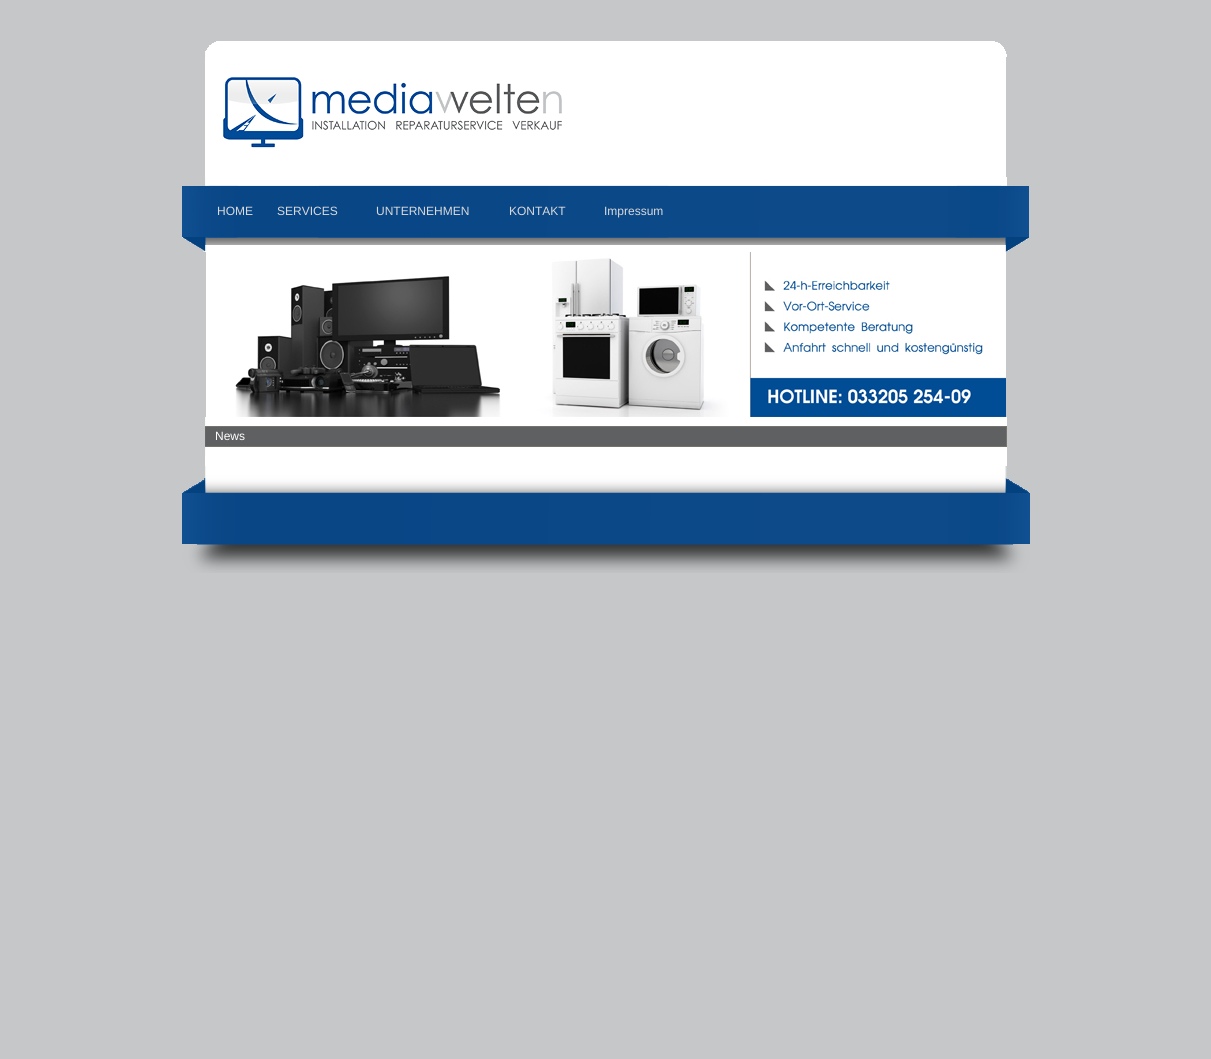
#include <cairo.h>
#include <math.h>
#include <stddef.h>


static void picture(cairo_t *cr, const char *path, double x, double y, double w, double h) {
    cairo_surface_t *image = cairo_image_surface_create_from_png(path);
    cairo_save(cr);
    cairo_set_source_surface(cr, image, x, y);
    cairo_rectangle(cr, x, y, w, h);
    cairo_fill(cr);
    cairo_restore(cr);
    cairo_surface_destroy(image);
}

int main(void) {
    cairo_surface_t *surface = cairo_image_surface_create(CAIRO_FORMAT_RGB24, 1211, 1059);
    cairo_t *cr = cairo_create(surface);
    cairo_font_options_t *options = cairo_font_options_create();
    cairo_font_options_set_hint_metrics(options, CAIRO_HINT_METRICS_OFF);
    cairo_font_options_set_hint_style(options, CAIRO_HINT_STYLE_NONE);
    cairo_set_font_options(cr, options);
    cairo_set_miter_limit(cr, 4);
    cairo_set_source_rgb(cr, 0.773, 0.78, 0.784);
    cairo_paint(cr);
    picture(cr, "img1.png", 205, 41, 802, 16);
    cairo_set_source_rgb(cr, 1, 1, 1);
    cairo_rectangle(cr, 205, 57, 801, 120);
    cairo_fill(cr);
    picture(cr, "img2.png", 223, 77, 339, 71);
    picture(cr, "img3.png", 182, 177, 847, 75);
    cairo_select_font_face(cr, "Liberation Sans", CAIRO_FONT_SLANT_NORMAL, CAIRO_FONT_WEIGHT_NORMAL);
    cairo_set_font_size(cr, 12);
    cairo_set_source_rgb(cr, 0.851, 0.851, 0.851);
    cairo_move_to(cr, 217, 215);
    cairo_show_text(cr, "HOME");
    cairo_move_to(cr, 277, 215);
    cairo_show_text(cr, "SERVICES");
    cairo_move_to(cr, 376, 215);
    cairo_show_text(cr, "UNTERNEHMEN");
    cairo_move_to(cr, 509, 215);
    cairo_show_text(cr, "KONTAKT");
    cairo_move_to(cr, 604, 215);
    cairo_show_text(cr, "Impressum");
    picture(cr, "img4.png", 206, 252, 800, 165);
    picture(cr, "img5.png", 205, 417, 802, 39);
    cairo_set_source_rgb(cr, 1, 1, 1);
    cairo_move_to(cr, 215, 440);
    cairo_show_text(cr, "News");
    cairo_rectangle(cr, 205, 456, 802, 10);
    cairo_fill(cr);
    picture(cr, "img6.png", 182, 466, 848, 107);
    cairo_surface_write_to_png(surface, "page.png");
    cairo_font_options_destroy(options);
    cairo_destroy(cr);
    cairo_surface_destroy(surface);
    return 0;
}
